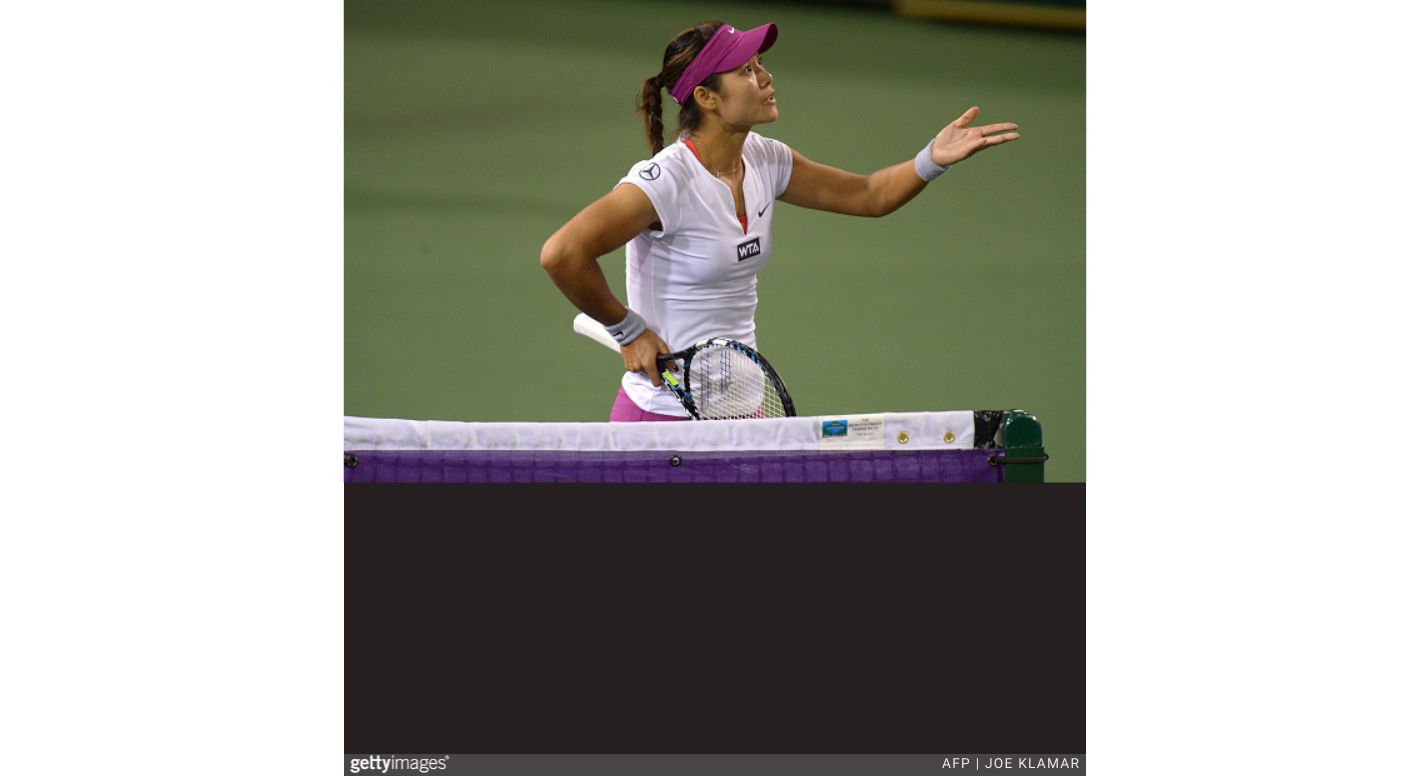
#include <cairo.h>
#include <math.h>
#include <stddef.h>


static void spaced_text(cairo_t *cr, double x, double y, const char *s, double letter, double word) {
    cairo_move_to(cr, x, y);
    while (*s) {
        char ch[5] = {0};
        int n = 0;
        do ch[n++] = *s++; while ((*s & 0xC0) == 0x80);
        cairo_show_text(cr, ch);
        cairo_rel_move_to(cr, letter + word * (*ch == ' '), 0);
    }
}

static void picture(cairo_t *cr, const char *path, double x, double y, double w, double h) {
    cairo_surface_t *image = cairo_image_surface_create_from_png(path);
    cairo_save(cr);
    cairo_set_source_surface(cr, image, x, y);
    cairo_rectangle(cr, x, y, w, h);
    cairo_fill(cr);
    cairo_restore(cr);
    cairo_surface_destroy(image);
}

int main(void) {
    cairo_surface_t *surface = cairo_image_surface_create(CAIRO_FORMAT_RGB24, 1428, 776);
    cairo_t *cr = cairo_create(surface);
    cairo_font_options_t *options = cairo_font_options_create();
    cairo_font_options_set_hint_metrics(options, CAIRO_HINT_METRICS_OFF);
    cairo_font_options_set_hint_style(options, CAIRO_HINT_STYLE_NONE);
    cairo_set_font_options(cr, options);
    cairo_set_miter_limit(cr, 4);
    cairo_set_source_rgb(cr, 1, 1, 1);
    cairo_paint(cr);
    cairo_set_source_rgb(cr, 0.145, 0.122, 0.125);
    cairo_rectangle(cr, 344, 482, 742, 272);
    cairo_fill(cr);
    picture(cr, "img1.png", 343, 0, 744, 483);
    cairo_set_source_rgb(cr, 0.278, 0.271, 0.271);
    cairo_rectangle(cr, 344, 754, 742, 22);
    cairo_fill(cr);
    picture(cr, "img2.png", 349, 755, 101, 18);
    cairo_select_font_face(cr, "Roboto", CAIRO_FONT_SLANT_NORMAL, CAIRO_FONT_WEIGHT_NORMAL);
    cairo_set_font_size(cr, 13.75);
    cairo_set_source_rgb(cr, 0.933, 0.933, 0.933);
    spaced_text(cr, 942, 768, "AFP | JOE KLAMAR", 1.25, 0);
    cairo_surface_write_to_png(surface, "page.png");
    cairo_font_options_destroy(options);
    cairo_destroy(cr);
    cairo_surface_destroy(surface);
    return 0;
}
